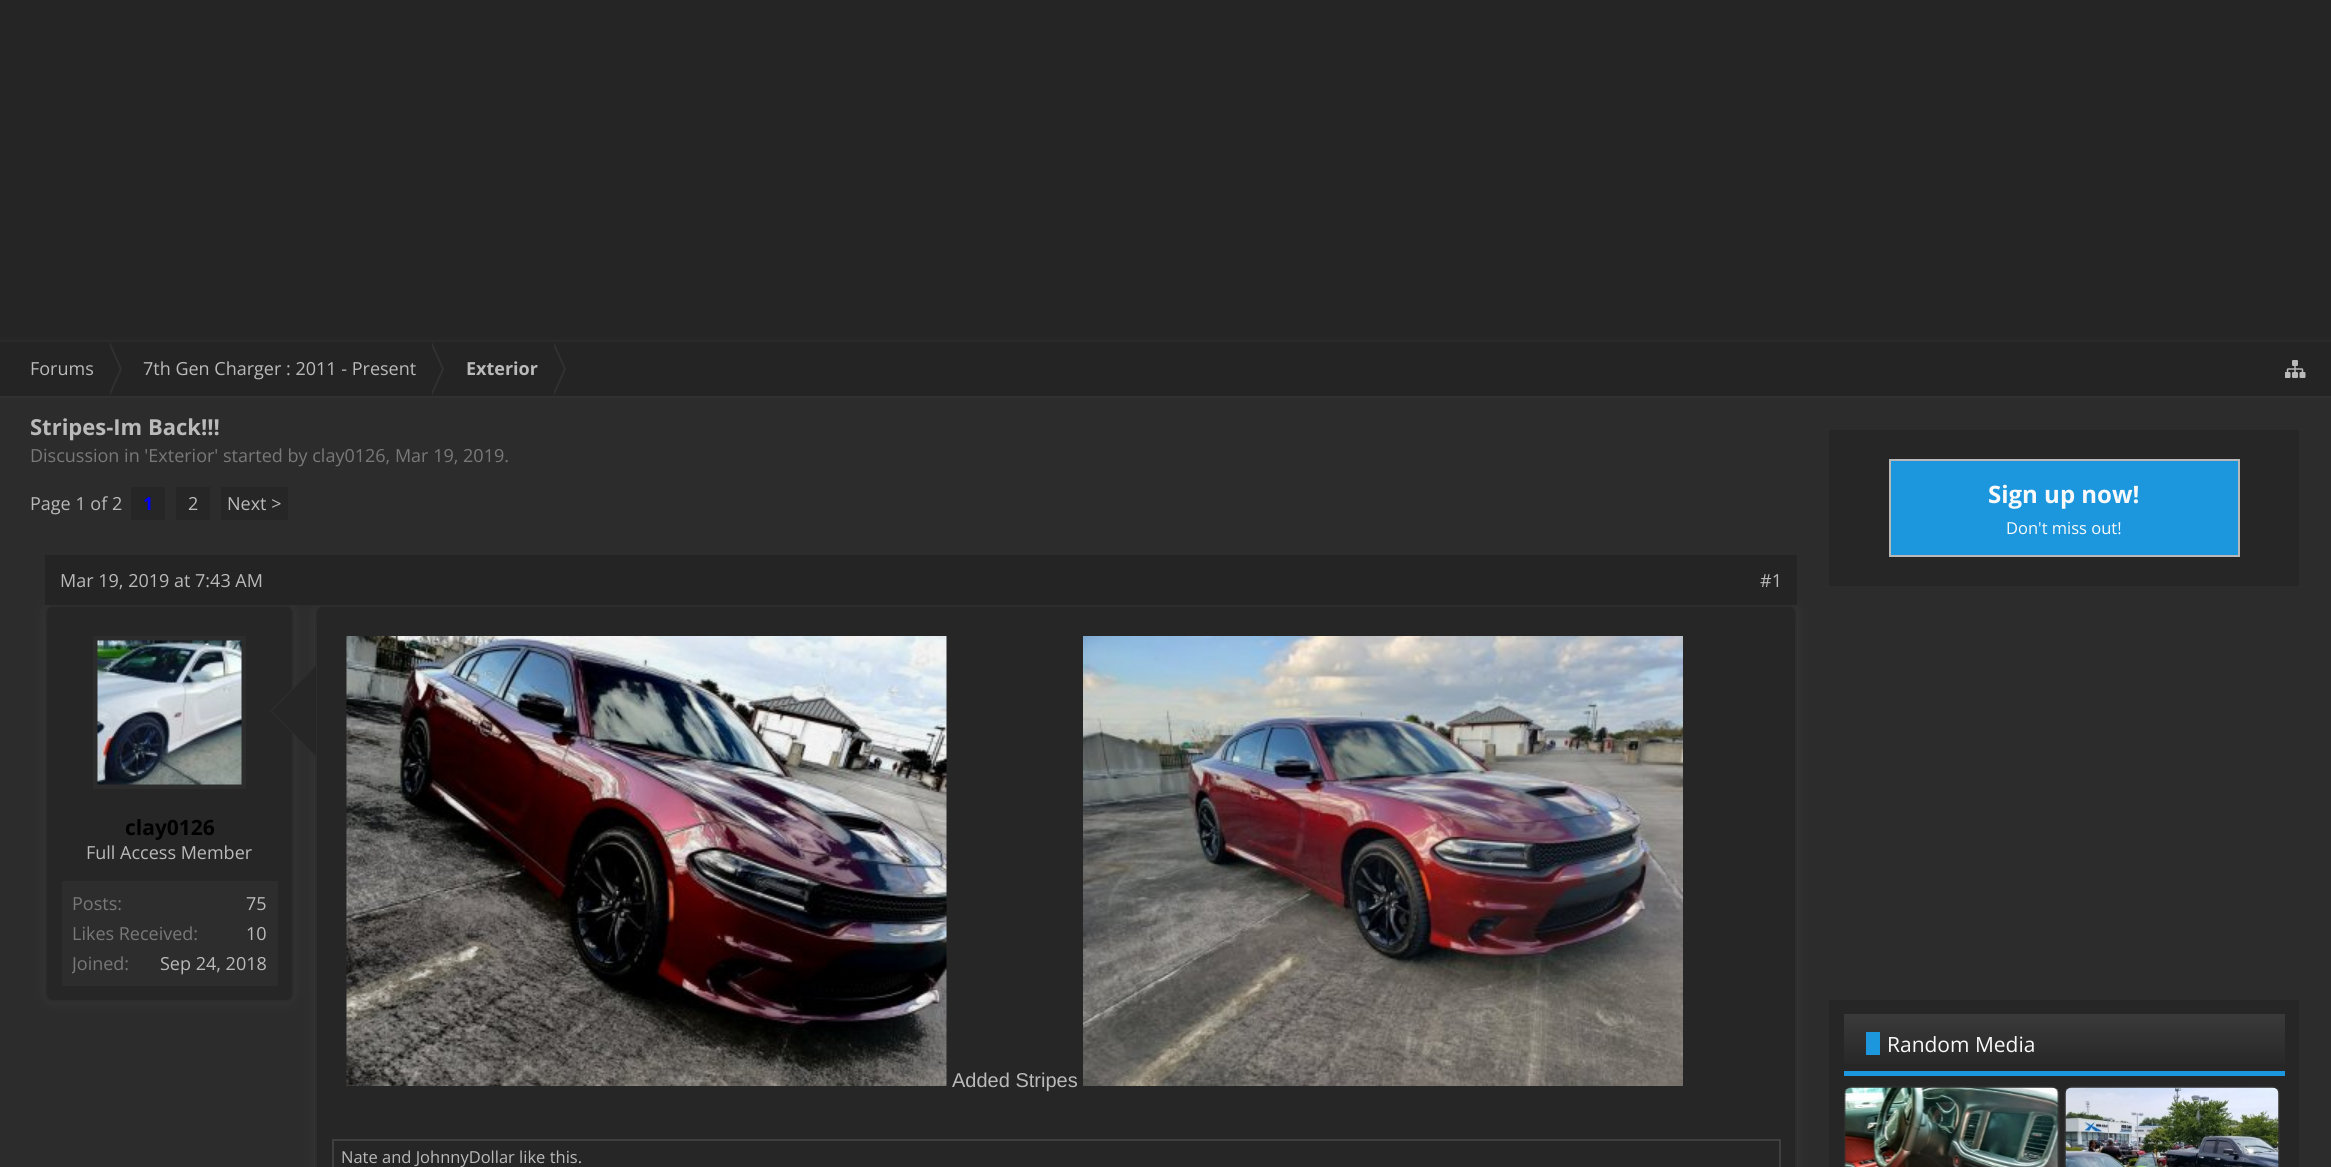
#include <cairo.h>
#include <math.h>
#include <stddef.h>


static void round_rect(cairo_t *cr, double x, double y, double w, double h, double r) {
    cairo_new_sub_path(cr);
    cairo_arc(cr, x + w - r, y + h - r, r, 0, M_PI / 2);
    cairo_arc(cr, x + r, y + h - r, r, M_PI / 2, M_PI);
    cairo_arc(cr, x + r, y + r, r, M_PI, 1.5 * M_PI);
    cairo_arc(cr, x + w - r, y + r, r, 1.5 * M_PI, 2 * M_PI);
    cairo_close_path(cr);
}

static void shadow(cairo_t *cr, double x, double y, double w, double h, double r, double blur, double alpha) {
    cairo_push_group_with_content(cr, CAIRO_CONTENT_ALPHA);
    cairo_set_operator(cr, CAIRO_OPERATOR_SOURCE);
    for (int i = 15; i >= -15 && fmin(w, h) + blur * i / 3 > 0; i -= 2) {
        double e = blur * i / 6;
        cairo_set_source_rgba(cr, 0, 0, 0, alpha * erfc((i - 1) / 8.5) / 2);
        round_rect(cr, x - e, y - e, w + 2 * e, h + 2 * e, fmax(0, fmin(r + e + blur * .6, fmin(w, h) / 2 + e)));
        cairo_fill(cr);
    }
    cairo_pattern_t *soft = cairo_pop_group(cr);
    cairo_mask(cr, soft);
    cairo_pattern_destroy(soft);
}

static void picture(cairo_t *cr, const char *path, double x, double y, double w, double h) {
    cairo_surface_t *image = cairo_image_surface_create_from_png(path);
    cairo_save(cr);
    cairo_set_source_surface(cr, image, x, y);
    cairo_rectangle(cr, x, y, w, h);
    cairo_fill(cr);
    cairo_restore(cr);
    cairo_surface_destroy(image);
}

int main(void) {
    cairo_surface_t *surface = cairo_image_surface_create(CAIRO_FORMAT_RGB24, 2331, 1167);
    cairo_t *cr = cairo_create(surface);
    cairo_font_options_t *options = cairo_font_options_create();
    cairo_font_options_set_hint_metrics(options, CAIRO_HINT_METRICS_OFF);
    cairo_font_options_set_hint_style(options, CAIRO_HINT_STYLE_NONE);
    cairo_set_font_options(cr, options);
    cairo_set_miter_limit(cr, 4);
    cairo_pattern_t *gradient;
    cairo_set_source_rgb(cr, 0.145, 0.145, 0.145);
    cairo_paint(cr);
    cairo_set_source_rgb(cr, 0.263, 0.259, 0.259);
    shadow(cr, 0, 344, 2331, 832, 0, 3, 1);
    cairo_set_source_rgb(cr, 0.173, 0.173, 0.173);
    cairo_rectangle(cr, 0, 398, 2331, 769);
    cairo_fill(cr);
    cairo_set_source_rgb(cr, 0.141, 0.141, 0.141);
    cairo_rectangle(cr, 0, 342, 2331, 54);
    cairo_fill(cr);
    cairo_set_source_rgb(cr, 0.192, 0.192, 0.192);
    cairo_rectangle(cr, 0, 396, 2331, 2);
    cairo_fill(cr);
    cairo_select_font_face(cr, "Open Sans", CAIRO_FONT_SLANT_NORMAL, CAIRO_FONT_WEIGHT_NORMAL);
    cairo_set_font_size(cr, 18);
    cairo_set_source_rgb(cr, 0.729, 0.729, 0.729);
    cairo_move_to(cr, 30, 375);
    cairo_show_text(cr, "Forums");
    cairo_set_source_rgb(cr, 0.192, 0.192, 0.192);
    cairo_new_path(cr);
    cairo_move_to(cr, 110, 396);
    cairo_line_to(cr, 110, 342);
    cairo_line_to(cr, 122, 369);
    cairo_close_path(cr);
    cairo_fill(cr);
    cairo_set_source_rgb(cr, 0.141, 0.141, 0.141);
    cairo_new_path(cr);
    cairo_move_to(cr, 108, 396);
    cairo_line_to(cr, 108, 342);
    cairo_line_to(cr, 120, 369);
    cairo_close_path(cr);
    cairo_fill(cr);
    cairo_set_source_rgb(cr, 0.729, 0.729, 0.729);
    cairo_move_to(cr, 143, 375);
    cairo_show_text(cr, "7th Gen Charger : 2011 - Present");
    cairo_set_source_rgb(cr, 0.192, 0.192, 0.192);
    cairo_new_path(cr);
    cairo_move_to(cr, 432, 396);
    cairo_line_to(cr, 432, 342);
    cairo_line_to(cr, 444, 369);
    cairo_close_path(cr);
    cairo_fill(cr);
    cairo_set_source_rgb(cr, 0.141, 0.141, 0.141);
    cairo_new_path(cr);
    cairo_move_to(cr, 430, 396);
    cairo_line_to(cr, 430, 342);
    cairo_line_to(cr, 442, 369);
    cairo_close_path(cr);
    cairo_fill(cr);
    cairo_select_font_face(cr, "Open Sans", CAIRO_FONT_SLANT_NORMAL, CAIRO_FONT_WEIGHT_BOLD);
    cairo_set_source_rgb(cr, 0.729, 0.729, 0.729);
    cairo_move_to(cr, 466, 375);
    cairo_show_text(cr, "Exterior");
    cairo_set_source_rgb(cr, 0.192, 0.192, 0.192);
    cairo_new_path(cr);
    cairo_move_to(cr, 554, 396);
    cairo_line_to(cr, 554, 342);
    cairo_line_to(cr, 566, 369);
    cairo_close_path(cr);
    cairo_fill(cr);
    cairo_set_source_rgb(cr, 0.141, 0.141, 0.141);
    cairo_new_path(cr);
    cairo_move_to(cr, 552, 396);
    cairo_line_to(cr, 552, 342);
    cairo_line_to(cr, 564, 369);
    cairo_close_path(cr);
    cairo_fill(cr);
    picture(cr, "img1.png", 2285, 360, 21, 18);
    cairo_set_font_size(cr, 22);
    cairo_set_source_rgb(cr, 0.729, 0.729, 0.729);
    cairo_move_to(cr, 30, 435);
    cairo_show_text(cr, "Stripes-Im Back!!!");
    cairo_select_font_face(cr, "Open Sans", CAIRO_FONT_SLANT_NORMAL, CAIRO_FONT_WEIGHT_NORMAL);
    cairo_set_font_size(cr, 18);
    cairo_set_source_rgb(cr, 0.471, 0.471, 0.471);
    cairo_move_to(cr, 30, 462);
    cairo_show_text(cr, "Discussion in 'Exterior' started by clay0126, Mar 19, 2019.");
    cairo_set_source_rgb(cr, 0.729, 0.729, 0.729);
    cairo_move_to(cr, 30, 510);
    cairo_show_text(cr, "Page 1 of 2");
    cairo_set_source_rgb(cr, 0.149, 0.149, 0.149);
    cairo_rectangle(cr, 131, 487, 34, 33);
    cairo_fill(cr);
    cairo_select_font_face(cr, "Open Sans", CAIRO_FONT_SLANT_NORMAL, CAIRO_FONT_WEIGHT_BOLD);
    cairo_set_source_rgb(cr, 0, 0, 1);
    cairo_move_to(cr, 143, 510);
    cairo_show_text(cr, "1");
    cairo_set_source_rgb(cr, 0.149, 0.149, 0.149);
    cairo_rectangle(cr, 176, 487, 34, 33);
    cairo_fill(cr);
    cairo_select_font_face(cr, "Open Sans", CAIRO_FONT_SLANT_NORMAL, CAIRO_FONT_WEIGHT_NORMAL);
    cairo_set_source_rgb(cr, 0.729, 0.729, 0.729);
    cairo_move_to(cr, 188, 510);
    cairo_show_text(cr, "2");
    cairo_set_source_rgb(cr, 0.149, 0.149, 0.149);
    cairo_rectangle(cr, 221, 487, 67, 33);
    cairo_fill(cr);
    cairo_set_source_rgb(cr, 0.729, 0.729, 0.729);
    cairo_move_to(cr, 227, 510);
    cairo_show_text(cr, "Next >");
    cairo_set_source_rgb(cr, 0.216, 0.216, 0.216);
    shadow(cr, 45, 605, 249, 397, 8, 6, 1);
    shadow(cr, 315, 605, 1482, 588, 8, 6, 1);
    cairo_set_source_rgb(cr, 0.141, 0.141, 0.141);
    cairo_rectangle(cr, 45, 555, 1752, 50);
    cairo_fill(cr);
    cairo_set_source_rgb(cr, 0.729, 0.729, 0.729);
    cairo_move_to(cr, 60, 587);
    cairo_show_text(cr, "Mar 19, 2019 at 7:43 AM");
    cairo_move_to(cr, 1760, 587);
    cairo_show_text(cr, "#1");
    cairo_set_source_rgb(cr, 0.149, 0.149, 0.149);
    round_rect(cr, 46, 606, 247, 395, 7);
    cairo_fill_preserve(cr);
    cairo_set_source_rgb(cr, 0.176, 0.176, 0.176);
    cairo_stroke(cr);
    cairo_set_source_rgb(cr, 0.173, 0.173, 0.173);
    cairo_rectangle(cr, 93, 636, 153, 153);
    cairo_fill(cr);
    picture(cr, "img2.png", 97, 640, 145, 145);
    cairo_set_source_rgb(cr, 0.176, 0.176, 0.176);
    cairo_new_path(cr);
    cairo_move_to(cr, 315, 666);
    cairo_line_to(cr, 315, 756);
    cairo_line_to(cr, 270, 711);
    cairo_close_path(cr);
    cairo_fill(cr);
    cairo_set_source_rgb(cr, 0.149, 0.149, 0.149);
    round_rect(cr, 316, 606, 1480, 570, 7);
    cairo_fill_preserve(cr);
    cairo_set_source_rgb(cr, 0.176, 0.176, 0.176);
    cairo_stroke(cr);
    cairo_set_source_rgb(cr, 0.149, 0.149, 0.149);
    cairo_new_path(cr);
    cairo_move_to(cr, 316, 666);
    cairo_line_to(cr, 316, 756);
    cairo_line_to(cr, 272, 711);
    cairo_close_path(cr);
    cairo_fill(cr);
    cairo_select_font_face(cr, "Open Sans", CAIRO_FONT_SLANT_NORMAL, CAIRO_FONT_WEIGHT_BOLD);
    cairo_set_font_size(cr, 21);
    cairo_set_source_rgb(cr, 0, 0, 0);
    cairo_move_to(cr, 125, 835);
    cairo_show_text(cr, "clay0126");
    cairo_select_font_face(cr, "Open Sans", CAIRO_FONT_SLANT_NORMAL, CAIRO_FONT_WEIGHT_NORMAL);
    cairo_set_font_size(cr, 18);
    cairo_set_source_rgb(cr, 0.729, 0.729, 0.729);
    cairo_move_to(cr, 86, 859);
    cairo_show_text(cr, "Full Access Member");
    cairo_set_source_rgb(cr, 0.176, 0.176, 0.176);
    cairo_rectangle(cr, 62, 881, 216, 105);
    cairo_fill(cr);
    cairo_set_source_rgb(cr, 0.471, 0.471, 0.471);
    cairo_move_to(cr, 72, 910);
    cairo_show_text(cr, "Posts:");
    cairo_set_source_rgb(cr, 0.729, 0.729, 0.729);
    cairo_move_to(cr, 246, 910);
    cairo_show_text(cr, "75");
    cairo_set_source_rgb(cr, 0.471, 0.471, 0.471);
    cairo_move_to(cr, 72, 940);
    cairo_show_text(cr, "Likes Received:");
    cairo_set_source_rgb(cr, 0.729, 0.729, 0.729);
    cairo_move_to(cr, 246, 940);
    cairo_show_text(cr, "10");
    cairo_save(cr);
    cairo_rectangle(cr, 72, 951, 195, 27);
    cairo_clip(cr);
    cairo_set_source_rgb(cr, 0.471, 0.471, 0.471);
    cairo_move_to(cr, 72, 970);
    cairo_show_text(cr, "Joined:");
    cairo_restore(cr);
    cairo_move_to(cr, 160, 970);
    cairo_show_text(cr, "Sep 24, 2018");
    picture(cr, "img3.png", 346, 636, 601, 450);
    cairo_select_font_face(cr, "Liberation Sans", CAIRO_FONT_SLANT_NORMAL, CAIRO_FONT_WEIGHT_NORMAL);
    cairo_set_font_size(cr, 20);
    cairo_move_to(cr, 952, 1087);
    cairo_show_text(cr, "Added Stripes");
    picture(cr, "img4.png", 1083, 636, 600, 450);
    cairo_rectangle(cr, 333, 1140, 1447, 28);
    cairo_set_source_rgb(cr, 0.251, 0.247, 0.247);
    cairo_stroke(cr);
    cairo_select_font_face(cr, "Open Sans", CAIRO_FONT_SLANT_NORMAL, CAIRO_FONT_WEIGHT_NORMAL);
    cairo_set_font_size(cr, 16.5);
    cairo_set_source_rgb(cr, 0.729, 0.729, 0.729);
    cairo_move_to(cr, 341, 1163);
    cairo_show_text(cr, "Nate and JohnnyDollar like this.");
    cairo_set_source_rgb(cr, 0.149, 0.149, 0.149);
    cairo_rectangle(cr, 1829, 430, 470, 156);
    cairo_fill(cr);
    cairo_set_source_rgb(cr, 0.11, 0.592, 0.871);
    cairo_rectangle(cr, 1890, 460, 349, 96);
    cairo_fill_preserve(cr);
    cairo_set_source_rgb(cr, 0.722, 0.722, 0.722);
    cairo_stroke(cr);
    cairo_select_font_face(cr, "Open Sans", CAIRO_FONT_SLANT_NORMAL, CAIRO_FONT_WEIGHT_BOLD);
    cairo_set_font_size(cr, 24);
    cairo_set_source_rgb(cr, 0.973, 0.973, 0.973);
    cairo_move_to(cr, 1988, 503);
    cairo_show_text(cr, "Sign up now!");
    cairo_select_font_face(cr, "Open Sans", CAIRO_FONT_SLANT_NORMAL, CAIRO_FONT_WEIGHT_NORMAL);
    cairo_set_font_size(cr, 16.5);
    cairo_move_to(cr, 2006, 534);
    cairo_show_text(cr, "Don't miss out!");
    cairo_set_source_rgb(cr, 0.149, 0.149, 0.149);
    cairo_rectangle(cr, 1829, 1000, 470, 167);
    cairo_fill(cr);
    gradient = cairo_pattern_create_linear(2064, 1014, 2064, 1071);
    cairo_pattern_add_color_stop_rgba(gradient, 0, 0.227, 0.227, 0.227, 1);
    cairo_pattern_add_color_stop_rgba(gradient, 1, 0.149, 0.149, 0.149, 1);
    cairo_set_source(cr, gradient);
    cairo_pattern_destroy(gradient);
    cairo_rectangle(cr, 1844, 1014, 441, 50);
    cairo_fill(cr);
    cairo_set_source_rgb(cr, 0.11, 0.592, 0.871);
    cairo_rectangle(cr, 1844, 1071, 441, 5);
    cairo_fill(cr);
    cairo_rectangle(cr, 1866, 1032, 14, 23);
    cairo_fill(cr);
    cairo_set_font_size(cr, 21);
    cairo_set_source_rgb(cr, 0.973, 0.973, 0.973);
    cairo_move_to(cr, 1887, 1052);
    cairo_show_text(cr, "Random Media");
    round_rect(cr, 1845, 1087, 214, 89, 7);
    cairo_set_source_rgb(cr, 0.176, 0.176, 0.176);
    cairo_stroke(cr);
    picture(cr, "img5.png", 1844, 1087, 215, 80);
    round_rect(cr, 2065, 1087, 214, 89, 7);
    cairo_stroke(cr);
    picture(cr, "img6.png", 2065, 1087, 214, 80);
    picture(cr, "img7.png", 1886, 1165, 6, 2);
    picture(cr, "img8.png", 2236, 1165, 5, 2);
    cairo_surface_write_to_png(surface, "page.png");
    cairo_font_options_destroy(options);
    cairo_destroy(cr);
    cairo_surface_destroy(surface);
    return 0;
}
